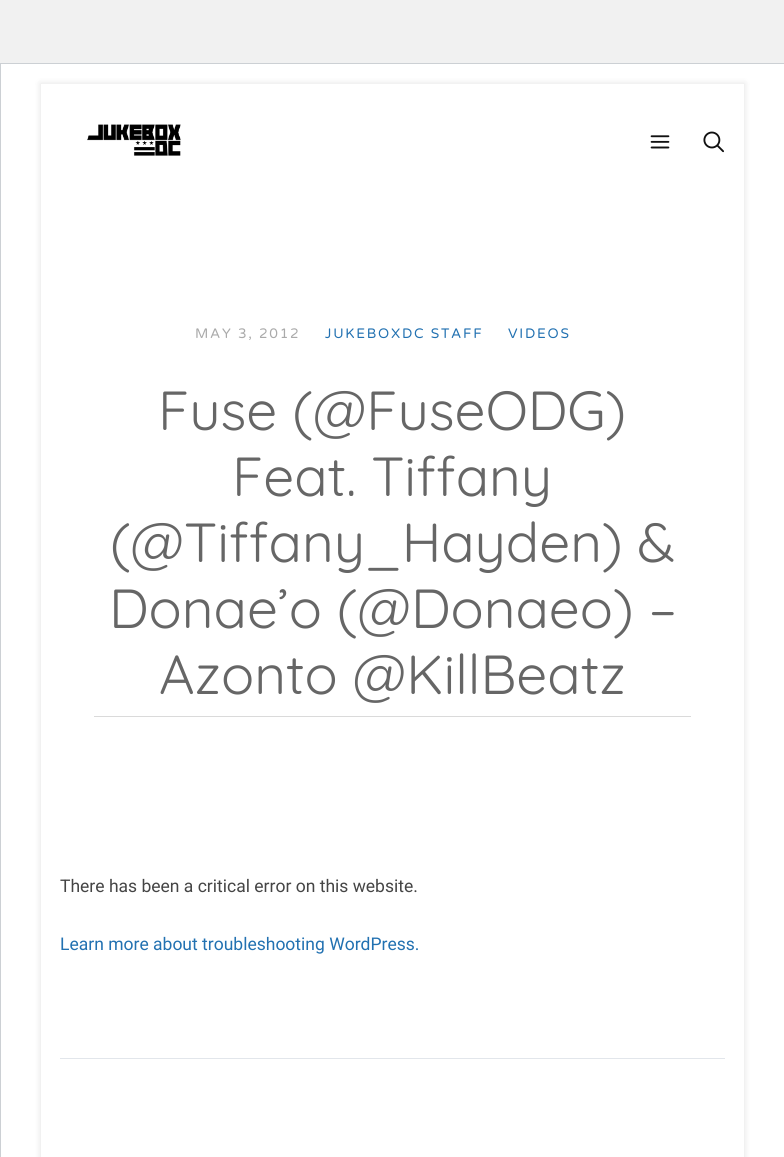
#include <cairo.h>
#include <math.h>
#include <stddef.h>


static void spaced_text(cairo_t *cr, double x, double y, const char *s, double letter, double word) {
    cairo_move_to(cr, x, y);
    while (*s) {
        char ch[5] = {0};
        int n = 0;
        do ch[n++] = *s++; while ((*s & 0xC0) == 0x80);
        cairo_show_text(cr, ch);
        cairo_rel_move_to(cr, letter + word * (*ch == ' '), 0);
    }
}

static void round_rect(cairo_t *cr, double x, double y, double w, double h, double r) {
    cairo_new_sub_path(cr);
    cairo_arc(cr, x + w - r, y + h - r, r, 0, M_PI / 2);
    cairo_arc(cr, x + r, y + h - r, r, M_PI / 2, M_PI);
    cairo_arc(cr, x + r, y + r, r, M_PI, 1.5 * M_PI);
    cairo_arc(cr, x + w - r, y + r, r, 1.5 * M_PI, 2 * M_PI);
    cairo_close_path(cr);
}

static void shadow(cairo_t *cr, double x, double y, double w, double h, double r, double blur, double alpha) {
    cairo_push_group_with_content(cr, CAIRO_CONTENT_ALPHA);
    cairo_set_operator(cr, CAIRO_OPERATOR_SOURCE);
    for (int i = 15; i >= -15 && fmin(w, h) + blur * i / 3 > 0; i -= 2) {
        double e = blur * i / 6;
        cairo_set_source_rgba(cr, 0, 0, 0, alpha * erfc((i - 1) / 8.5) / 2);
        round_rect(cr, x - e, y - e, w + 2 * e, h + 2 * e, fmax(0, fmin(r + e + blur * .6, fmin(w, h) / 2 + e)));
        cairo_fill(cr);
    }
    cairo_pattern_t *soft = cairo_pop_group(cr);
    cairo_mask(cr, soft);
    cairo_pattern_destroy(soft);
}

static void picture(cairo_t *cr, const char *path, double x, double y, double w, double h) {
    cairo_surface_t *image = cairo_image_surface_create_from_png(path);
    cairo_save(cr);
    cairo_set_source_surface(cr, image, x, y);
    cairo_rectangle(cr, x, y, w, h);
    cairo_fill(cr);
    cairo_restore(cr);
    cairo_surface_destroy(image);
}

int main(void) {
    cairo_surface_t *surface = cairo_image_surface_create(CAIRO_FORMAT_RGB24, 784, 1157);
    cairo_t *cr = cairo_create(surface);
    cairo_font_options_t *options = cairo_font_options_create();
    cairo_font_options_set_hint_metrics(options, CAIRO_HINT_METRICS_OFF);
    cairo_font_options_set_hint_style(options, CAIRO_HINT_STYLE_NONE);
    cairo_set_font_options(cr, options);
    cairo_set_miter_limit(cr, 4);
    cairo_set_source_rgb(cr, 0.945, 0.945, 0.945);
    cairo_paint(cr);
    cairo_set_source_rgb(cr, 1, 1, 1);
    cairo_rectangle(cr, 0.5, 63.5, 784, 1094);
    cairo_fill_preserve(cr);
    cairo_set_source_rgb(cr, 0.8, 0.816, 0.831);
    cairo_set_line_width(cr, 1);
    cairo_stroke(cr);
    cairo_set_source_rgb(cr, 0, 0, 0);
    shadow(cr, 40, 83, 705, 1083, 0, 3, 0.1);
    cairo_set_source_rgb(cr, 1, 1, 1);
    cairo_rectangle(cr, 41, 84, 703, 1073);
    cairo_fill(cr);
    picture(cr, "img1.png", 87, 124, 94, 32);
    picture(cr, "img2.png", 650, 135, 20, 14);
    picture(cr, "img3.png", 703, 131, 21, 22);
    cairo_select_font_face(cr, "Varela Round", CAIRO_FONT_SLANT_NORMAL, CAIRO_FONT_WEIGHT_NORMAL);
    cairo_set_font_size(cr, 13.75);
    cairo_set_source_rgb(cr, 0.667, 0.667, 0.667);
    spaced_text(cr, 195, 338, "MAY 3, 2012", 1.75, 0);
    cairo_set_source_rgb(cr, 0.133, 0.443, 0.694);
    spaced_text(cr, 325, 338, "JUKEBOXDC STAFF", 1.75, 0);
    spaced_text(cr, 508, 338, "VIDEOS", 1.75, 0);
    cairo_set_source_rgb(cr, 0.855, 0.855, 0.855);
    cairo_rectangle(cr, 94, 716, 597, 1);
    cairo_fill(cr);
    cairo_select_font_face(cr, "Quicksand Light", CAIRO_FONT_SLANT_NORMAL, CAIRO_FONT_WEIGHT_NORMAL);
    cairo_set_font_size(cr, 55);
    cairo_set_source_rgb(cr, 0.4, 0.4, 0.4);
    cairo_move_to(cr, 158, 430);
    cairo_show_text(cr, "Fuse (@FuseODG)");
    cairo_move_to(cr, 232, 496);
    cairo_show_text(cr, "Feat. Tiffany");
    cairo_move_to(cr, 110, 562);
    cairo_show_text(cr, "(@Tiffany_Hayden) &");
    cairo_move_to(cr, 109, 628);
    cairo_show_text(cr, "Donae’o (@Donaeo) –");
    cairo_move_to(cr, 159, 694);
    cairo_show_text(cr, "Azonto @KillBeatz");
    cairo_set_source_rgb(cr, 0.886, 0.902, 0.918);
    cairo_rectangle(cr, 60, 1058, 665, 1);
    cairo_fill(cr);
    cairo_select_font_face(cr, "Roboto", CAIRO_FONT_SLANT_NORMAL, CAIRO_FONT_WEIGHT_NORMAL);
    cairo_set_font_size(cr, 17.5);
    cairo_set_source_rgb(cr, 0.271, 0.271, 0.271);
    cairo_move_to(cr, 60, 892);
    cairo_show_text(cr, "There has been a critical error on this website.");
    cairo_set_source_rgb(cr, 0.133, 0.443, 0.694);
    cairo_move_to(cr, 60, 950);
    cairo_show_text(cr, "Learn more about troubleshooting WordPress.");
    cairo_surface_write_to_png(surface, "page.png");
    cairo_font_options_destroy(options);
    cairo_destroy(cr);
    cairo_surface_destroy(surface);
    return 0;
}
